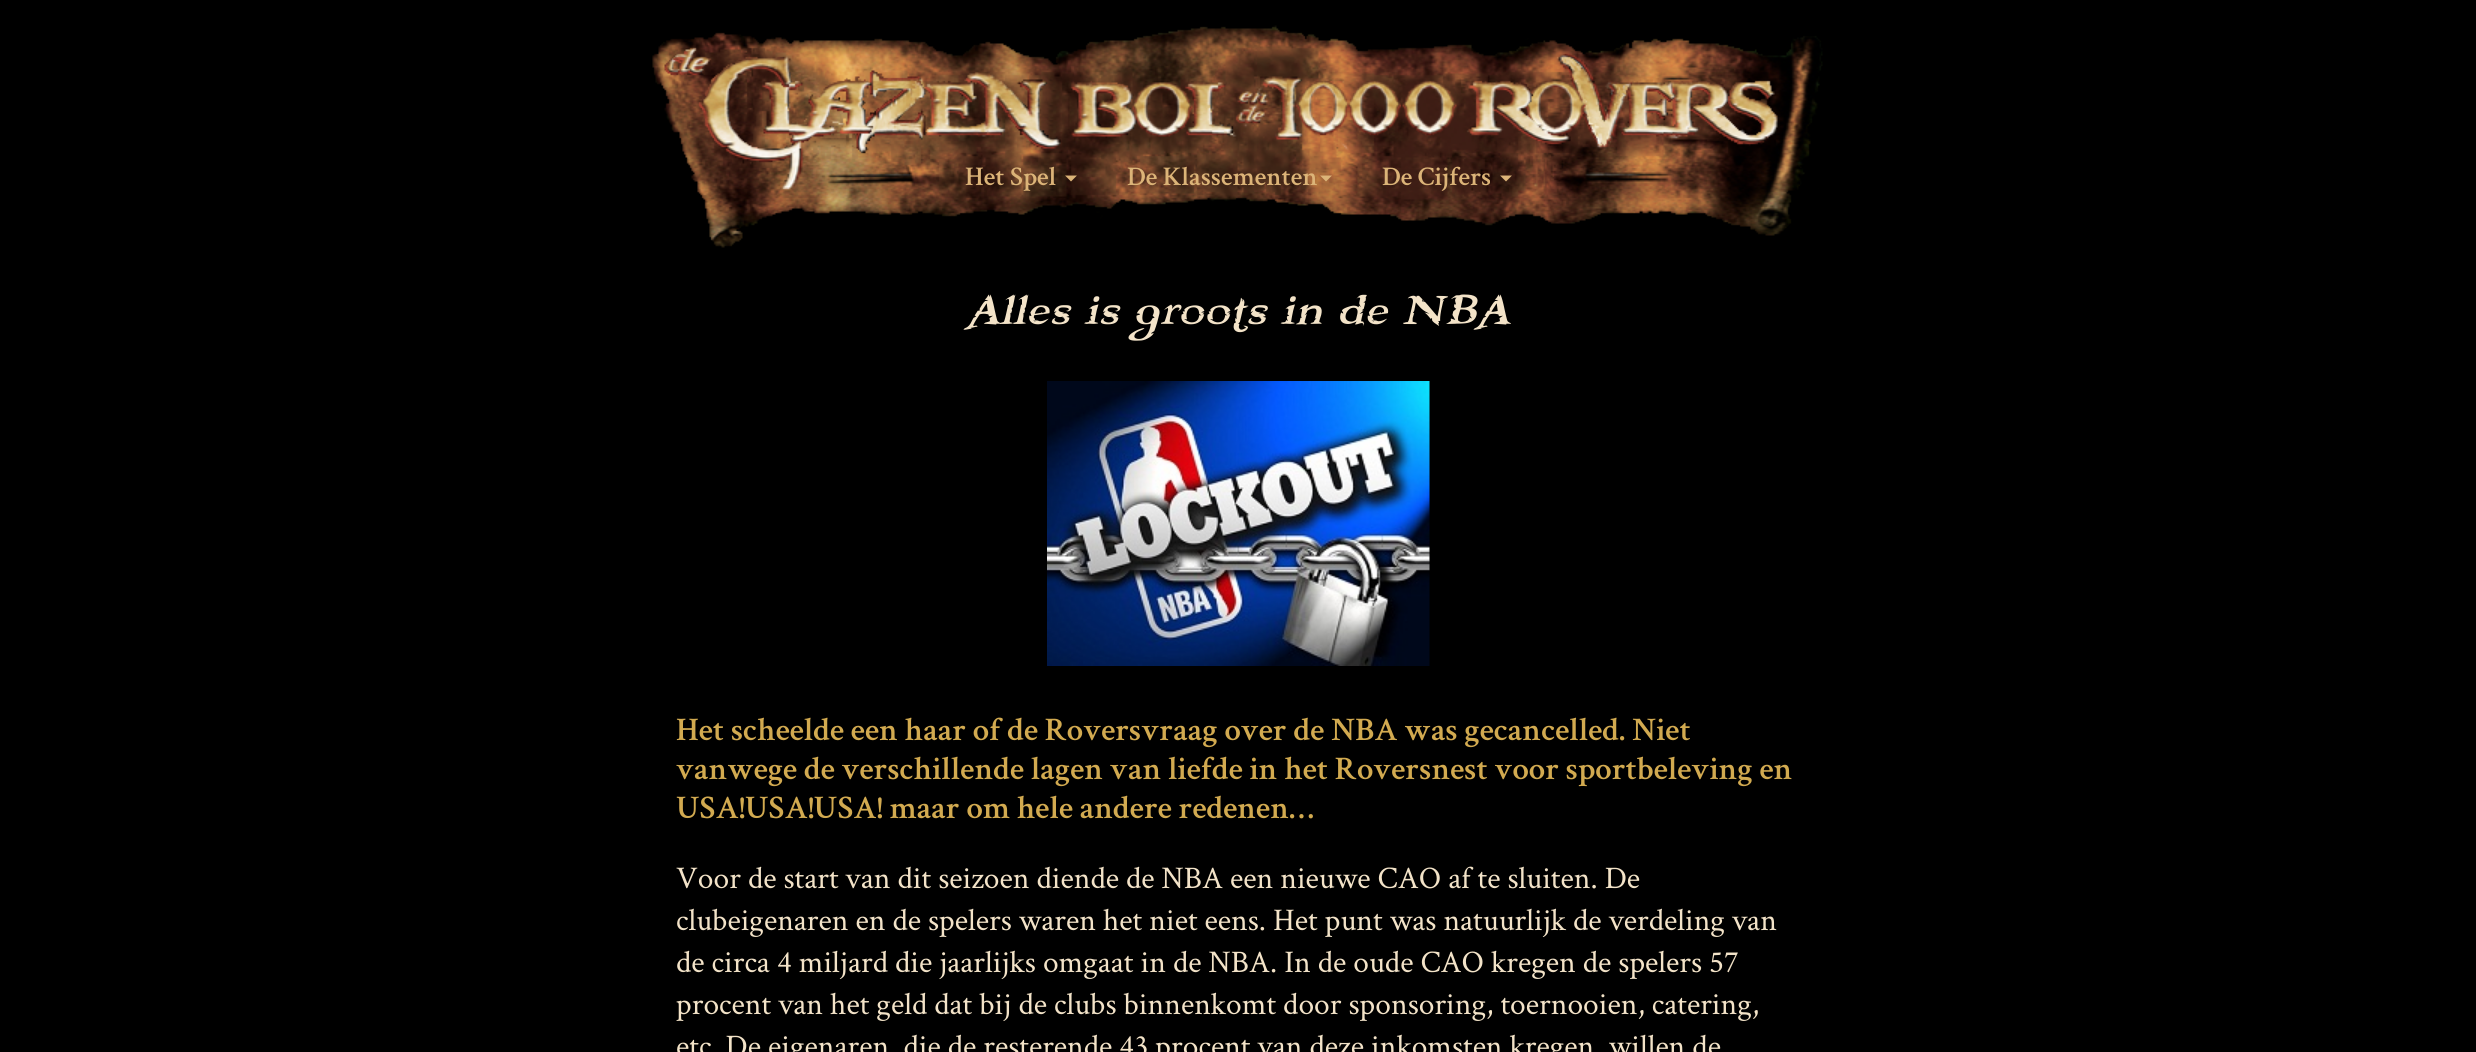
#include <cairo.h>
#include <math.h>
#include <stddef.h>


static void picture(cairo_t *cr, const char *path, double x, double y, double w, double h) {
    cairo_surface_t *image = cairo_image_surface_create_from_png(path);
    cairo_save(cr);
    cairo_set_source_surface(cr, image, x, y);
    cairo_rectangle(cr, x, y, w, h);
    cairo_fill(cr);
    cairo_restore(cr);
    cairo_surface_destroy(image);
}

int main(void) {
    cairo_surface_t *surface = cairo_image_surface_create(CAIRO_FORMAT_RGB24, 2476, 1052);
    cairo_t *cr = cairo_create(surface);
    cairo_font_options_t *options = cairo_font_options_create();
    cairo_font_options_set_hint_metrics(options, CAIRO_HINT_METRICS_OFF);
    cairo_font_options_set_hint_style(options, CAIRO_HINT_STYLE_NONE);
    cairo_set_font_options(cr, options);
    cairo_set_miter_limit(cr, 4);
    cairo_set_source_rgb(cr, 0, 0, 0);
    cairo_paint(cr);
    picture(cr, "img1.png", 652, 25, 1171, 223);
    cairo_select_font_face(cr, "Crimson Text SemiBold", CAIRO_FONT_SLANT_NORMAL, CAIRO_FONT_WEIGHT_NORMAL);
    cairo_set_font_size(cr, 27);
    cairo_set_source_rgb(cr, 0.863, 0.706, 0.471);
    cairo_move_to(cr, 965, 185);
    cairo_show_text(cr, "Het Spel");
    cairo_new_path(cr);
    cairo_move_to(cr, 1065, 175.5);
    cairo_line_to(cr, 1077, 175.5);
    cairo_line_to(cr, 1071, 181.5);
    cairo_close_path(cr);
    cairo_fill(cr);
    cairo_move_to(cr, 1127, 185);
    cairo_show_text(cr, "De Klassementen");
    cairo_new_path(cr);
    cairo_move_to(cr, 1320, 175.5);
    cairo_line_to(cr, 1332, 175.5);
    cairo_line_to(cr, 1326, 181.5);
    cairo_close_path(cr);
    cairo_fill(cr);
    cairo_move_to(cr, 1382, 185);
    cairo_show_text(cr, "De Cijfers");
    cairo_new_path(cr);
    cairo_move_to(cr, 1500, 175.5);
    cairo_line_to(cr, 1512, 175.5);
    cairo_line_to(cr, 1506, 181.5);
    cairo_close_path(cr);
    cairo_fill(cr);
    cairo_select_font_face(cr, "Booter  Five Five", CAIRO_FONT_SLANT_NORMAL, CAIRO_FONT_WEIGHT_NORMAL);
    cairo_set_font_size(cr, 60);
    cairo_set_source_rgb(cr, 0.953, 0.89, 0.784);
    cairo_move_to(cr, 967, 324);
    cairo_show_text(cr, "Alles is groots in de NBA");
    picture(cr, "img2.png", 1047, 381, 383, 285);
    cairo_select_font_face(cr, "Crimson Text SemiBold", CAIRO_FONT_SLANT_NORMAL, CAIRO_FONT_WEIGHT_NORMAL);
    cairo_set_font_size(cr, 33);
    cairo_set_source_rgb(cr, 0.824, 0.667, 0.314);
    cairo_move_to(cr, 676, 740);
    cairo_show_text(cr, "Het scheelde een haar of de Roversvraag over de NBA was gecancelled. Niet");
    cairo_move_to(cr, 676, 779);
    cairo_show_text(cr, "vanwege de verschillende lagen van liefde in het Roversnest voor sportbeleving en");
    cairo_move_to(cr, 676, 818);
    cairo_show_text(cr, "USA!USA!USA! maar om hele andere redenen…");
    cairo_select_font_face(cr, "Crimson Text", CAIRO_FONT_SLANT_NORMAL, CAIRO_FONT_WEIGHT_NORMAL);
    cairo_set_font_size(cr, 31.5);
    cairo_set_source_rgb(cr, 0.953, 0.89, 0.784);
    cairo_move_to(cr, 676, 888);
    cairo_show_text(cr, "Voor de start van dit seizoen diende de NBA een nieuwe CAO af te sluiten. De");
    cairo_move_to(cr, 676, 930);
    cairo_show_text(cr, "clubeigenaren en de spelers waren het niet eens. Het punt was natuurlijk de verdeling van");
    cairo_move_to(cr, 676, 972);
    cairo_show_text(cr, "de circa 4 miljard die jaarlijks omgaat in de NBA. In de oude CAO kregen de spelers 57");
    cairo_move_to(cr, 676, 1014);
    cairo_show_text(cr, "procent van het geld dat bij de clubs binnenkomt door sponsoring, toernooien, catering,");
    cairo_move_to(cr, 676, 1056);
    cairo_show_text(cr, "etc. De eigenaren, die de resterende 43 procent van deze inkomsten kregen, willen de");
    cairo_surface_write_to_png(surface, "page.png");
    cairo_font_options_destroy(options);
    cairo_destroy(cr);
    cairo_surface_destroy(surface);
    return 0;
}
